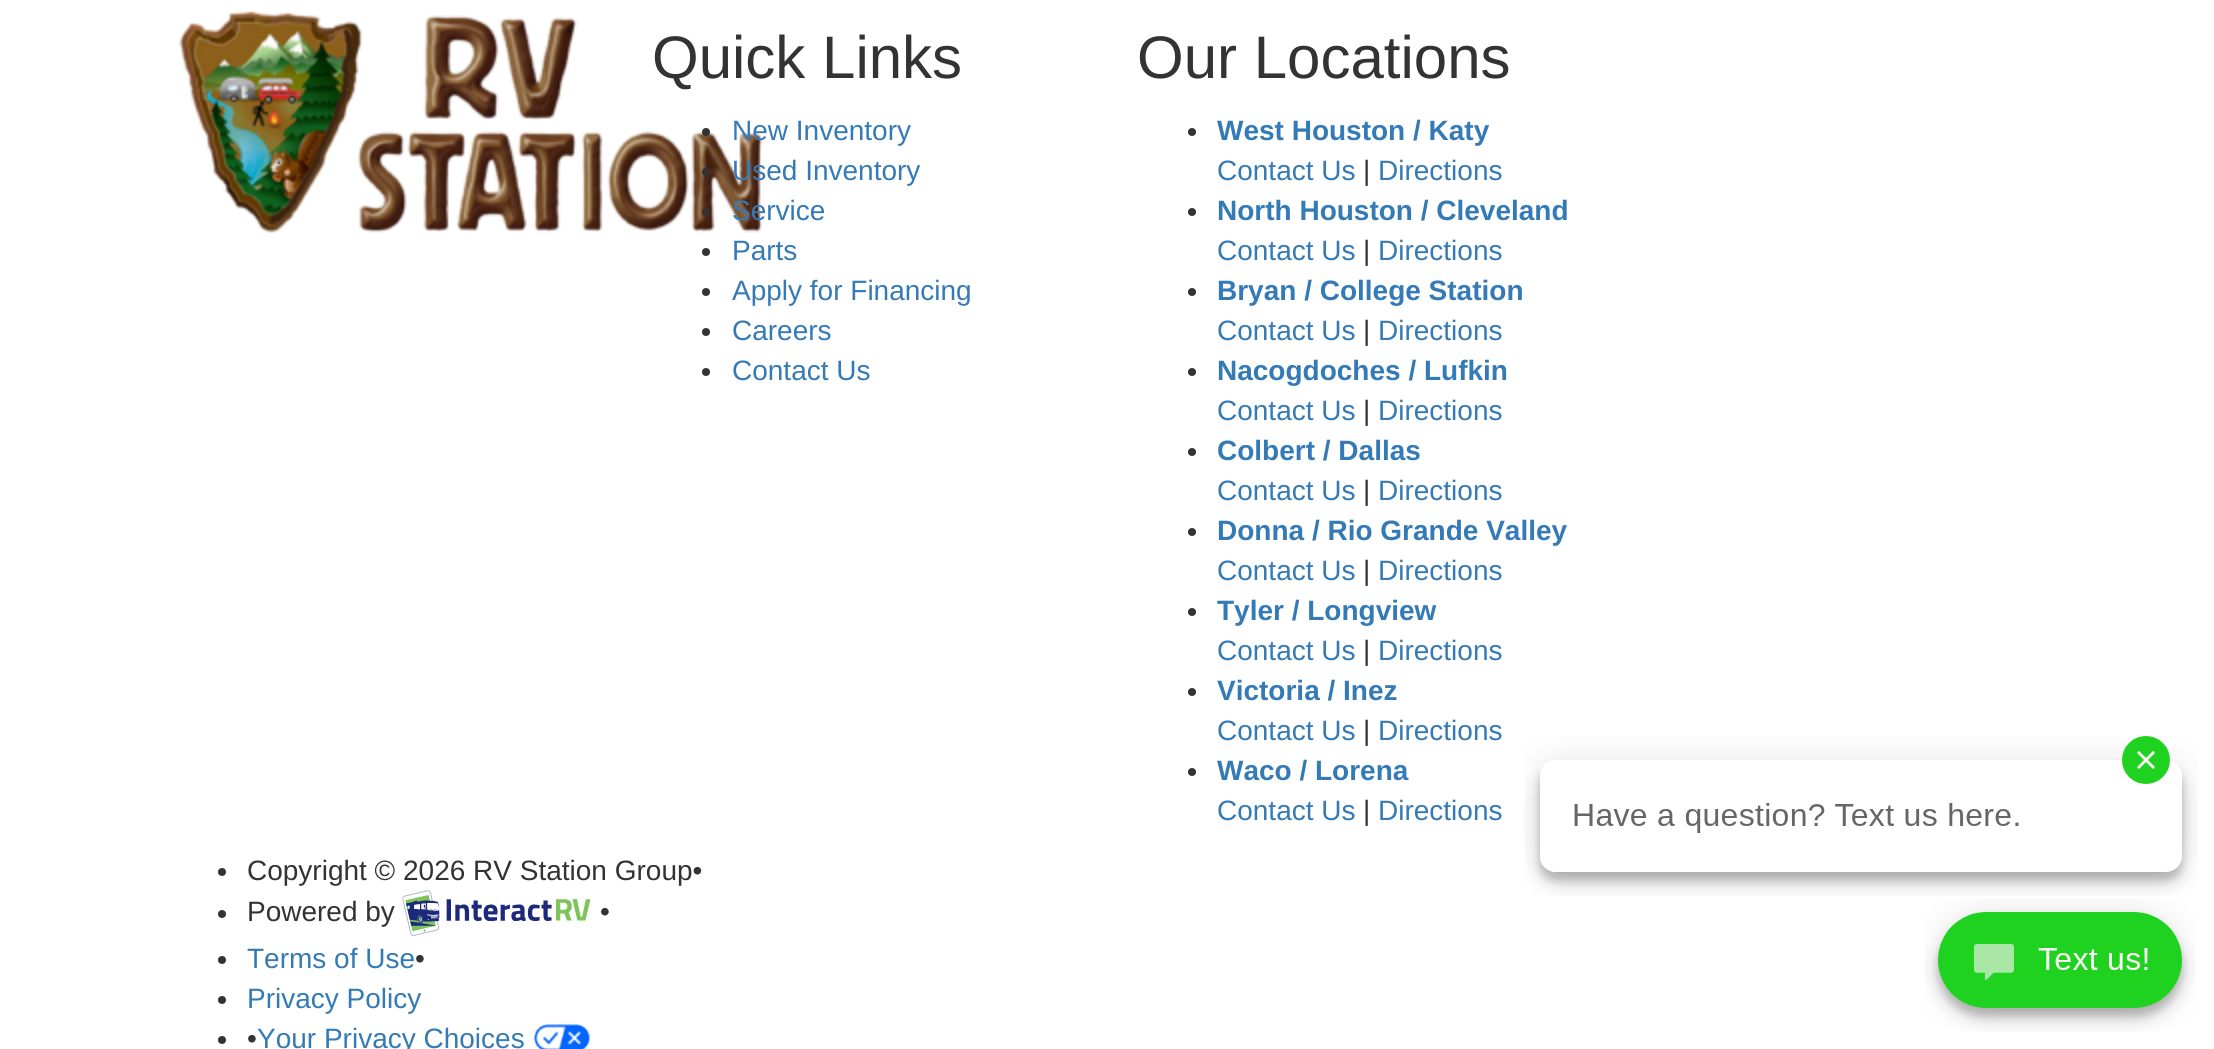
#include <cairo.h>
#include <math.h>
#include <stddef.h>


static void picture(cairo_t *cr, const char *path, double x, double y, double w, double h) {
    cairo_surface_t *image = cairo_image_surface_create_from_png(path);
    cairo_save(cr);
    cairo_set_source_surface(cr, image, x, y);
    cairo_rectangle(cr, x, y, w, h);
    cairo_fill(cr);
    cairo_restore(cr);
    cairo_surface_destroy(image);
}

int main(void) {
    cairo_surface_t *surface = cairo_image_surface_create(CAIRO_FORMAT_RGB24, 2214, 1049);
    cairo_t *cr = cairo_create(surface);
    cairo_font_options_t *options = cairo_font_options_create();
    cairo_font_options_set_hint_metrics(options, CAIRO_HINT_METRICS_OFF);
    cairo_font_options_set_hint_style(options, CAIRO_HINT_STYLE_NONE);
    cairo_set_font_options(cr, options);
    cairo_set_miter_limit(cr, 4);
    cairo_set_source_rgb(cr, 1, 1, 1);
    cairo_paint(cr);
    picture(cr, "img1.png", 179, 11, 584, 222);
    cairo_select_font_face(cr, "Liberation Sans", CAIRO_FONT_SLANT_NORMAL, CAIRO_FONT_WEIGHT_NORMAL);
    cairo_set_font_size(cr, 60);
    cairo_set_source_rgb(cr, 0.2, 0.2, 0.2);
    cairo_move_to(cr, 652, 78);
    cairo_show_text(cr, "Quick Links");
    cairo_new_path(cr);
    cairo_arc(cr, 706, 132, 4, 0, 2 * M_PI);
    cairo_fill(cr);
    cairo_set_font_size(cr, 28);
    cairo_set_source_rgb(cr, 0.2, 0.478, 0.718);
    cairo_move_to(cr, 732, 140);
    cairo_show_text(cr, "New Inventory");
    cairo_set_source_rgb(cr, 0.2, 0.2, 0.2);
    cairo_new_path(cr);
    cairo_arc(cr, 706, 172, 4, 0, 2 * M_PI);
    cairo_fill(cr);
    cairo_set_source_rgb(cr, 0.2, 0.478, 0.718);
    cairo_move_to(cr, 732, 180);
    cairo_show_text(cr, "Used Inventory");
    cairo_set_source_rgb(cr, 0.2, 0.2, 0.2);
    cairo_new_path(cr);
    cairo_arc(cr, 706, 212, 4, 0, 2 * M_PI);
    cairo_fill(cr);
    cairo_set_source_rgb(cr, 0.2, 0.478, 0.718);
    cairo_move_to(cr, 732, 220);
    cairo_show_text(cr, "Service");
    cairo_set_source_rgb(cr, 0.2, 0.2, 0.2);
    cairo_new_path(cr);
    cairo_arc(cr, 706, 252, 4, 0, 2 * M_PI);
    cairo_fill(cr);
    cairo_set_source_rgb(cr, 0.2, 0.478, 0.718);
    cairo_move_to(cr, 732, 260);
    cairo_show_text(cr, "Parts");
    cairo_set_source_rgb(cr, 0.2, 0.2, 0.2);
    cairo_new_path(cr);
    cairo_arc(cr, 706, 292, 4, 0, 2 * M_PI);
    cairo_fill(cr);
    cairo_set_source_rgb(cr, 0.2, 0.478, 0.718);
    cairo_move_to(cr, 732, 300);
    cairo_show_text(cr, "Apply for Financing");
    cairo_set_source_rgb(cr, 0.2, 0.2, 0.2);
    cairo_new_path(cr);
    cairo_arc(cr, 706, 332, 4, 0, 2 * M_PI);
    cairo_fill(cr);
    cairo_set_source_rgb(cr, 0.2, 0.478, 0.718);
    cairo_move_to(cr, 732, 340);
    cairo_show_text(cr, "Careers");
    cairo_set_source_rgb(cr, 0.2, 0.2, 0.2);
    cairo_new_path(cr);
    cairo_arc(cr, 706, 372, 4, 0, 2 * M_PI);
    cairo_fill(cr);
    cairo_set_source_rgb(cr, 0.2, 0.478, 0.718);
    cairo_move_to(cr, 732, 380);
    cairo_show_text(cr, "Contact Us");
    cairo_set_font_size(cr, 60);
    cairo_set_source_rgb(cr, 0.2, 0.2, 0.2);
    cairo_move_to(cr, 1137, 78);
    cairo_show_text(cr, "Our Locations");
    cairo_new_path(cr);
    cairo_arc(cr, 1192, 132, 4, 0, 2 * M_PI);
    cairo_fill(cr);
    cairo_select_font_face(cr, "Liberation Sans", CAIRO_FONT_SLANT_NORMAL, CAIRO_FONT_WEIGHT_BOLD);
    cairo_set_font_size(cr, 28);
    cairo_set_source_rgb(cr, 0.2, 0.478, 0.718);
    cairo_move_to(cr, 1217, 140);
    cairo_show_text(cr, "West Houston / Katy");
    cairo_select_font_face(cr, "Liberation Sans", CAIRO_FONT_SLANT_NORMAL, CAIRO_FONT_WEIGHT_NORMAL);
    cairo_move_to(cr, 1217, 180);
    cairo_show_text(cr, "Contact Us");
    cairo_set_source_rgb(cr, 0.2, 0.2, 0.2);
    cairo_move_to(cr, 1363, 180);
    cairo_show_text(cr, "|");
    cairo_set_source_rgb(cr, 0.2, 0.478, 0.718);
    cairo_move_to(cr, 1378, 180);
    cairo_show_text(cr, "Directions");
    cairo_set_source_rgb(cr, 0.2, 0.2, 0.2);
    cairo_new_path(cr);
    cairo_arc(cr, 1192, 212, 4, 0, 2 * M_PI);
    cairo_fill(cr);
    cairo_select_font_face(cr, "Liberation Sans", CAIRO_FONT_SLANT_NORMAL, CAIRO_FONT_WEIGHT_BOLD);
    cairo_set_source_rgb(cr, 0.2, 0.478, 0.718);
    cairo_move_to(cr, 1217, 220);
    cairo_show_text(cr, "North Houston / Cleveland");
    cairo_select_font_face(cr, "Liberation Sans", CAIRO_FONT_SLANT_NORMAL, CAIRO_FONT_WEIGHT_NORMAL);
    cairo_move_to(cr, 1217, 260);
    cairo_show_text(cr, "Contact Us");
    cairo_set_source_rgb(cr, 0.2, 0.2, 0.2);
    cairo_move_to(cr, 1363, 260);
    cairo_show_text(cr, "|");
    cairo_set_source_rgb(cr, 0.2, 0.478, 0.718);
    cairo_move_to(cr, 1378, 260);
    cairo_show_text(cr, "Directions");
    cairo_set_source_rgb(cr, 0.2, 0.2, 0.2);
    cairo_new_path(cr);
    cairo_arc(cr, 1192, 292, 4, 0, 2 * M_PI);
    cairo_fill(cr);
    cairo_select_font_face(cr, "Liberation Sans", CAIRO_FONT_SLANT_NORMAL, CAIRO_FONT_WEIGHT_BOLD);
    cairo_set_source_rgb(cr, 0.2, 0.478, 0.718);
    cairo_move_to(cr, 1217, 300);
    cairo_show_text(cr, "Bryan / College Station");
    cairo_select_font_face(cr, "Liberation Sans", CAIRO_FONT_SLANT_NORMAL, CAIRO_FONT_WEIGHT_NORMAL);
    cairo_move_to(cr, 1217, 340);
    cairo_show_text(cr, "Contact Us");
    cairo_set_source_rgb(cr, 0.2, 0.2, 0.2);
    cairo_move_to(cr, 1363, 340);
    cairo_show_text(cr, "|");
    cairo_set_source_rgb(cr, 0.2, 0.478, 0.718);
    cairo_move_to(cr, 1378, 340);
    cairo_show_text(cr, "Directions");
    cairo_set_source_rgb(cr, 0.2, 0.2, 0.2);
    cairo_new_path(cr);
    cairo_arc(cr, 1192, 372, 4, 0, 2 * M_PI);
    cairo_fill(cr);
    cairo_select_font_face(cr, "Liberation Sans", CAIRO_FONT_SLANT_NORMAL, CAIRO_FONT_WEIGHT_BOLD);
    cairo_set_source_rgb(cr, 0.2, 0.478, 0.718);
    cairo_move_to(cr, 1217, 380);
    cairo_show_text(cr, "Nacogdoches / Lufkin");
    cairo_select_font_face(cr, "Liberation Sans", CAIRO_FONT_SLANT_NORMAL, CAIRO_FONT_WEIGHT_NORMAL);
    cairo_move_to(cr, 1217, 420);
    cairo_show_text(cr, "Contact Us");
    cairo_set_source_rgb(cr, 0.2, 0.2, 0.2);
    cairo_move_to(cr, 1363, 420);
    cairo_show_text(cr, "|");
    cairo_set_source_rgb(cr, 0.2, 0.478, 0.718);
    cairo_move_to(cr, 1378, 420);
    cairo_show_text(cr, "Directions");
    cairo_set_source_rgb(cr, 0.2, 0.2, 0.2);
    cairo_new_path(cr);
    cairo_arc(cr, 1192, 452, 4, 0, 2 * M_PI);
    cairo_fill(cr);
    cairo_select_font_face(cr, "Liberation Sans", CAIRO_FONT_SLANT_NORMAL, CAIRO_FONT_WEIGHT_BOLD);
    cairo_set_source_rgb(cr, 0.2, 0.478, 0.718);
    cairo_move_to(cr, 1217, 460);
    cairo_show_text(cr, "Colbert / Dallas");
    cairo_select_font_face(cr, "Liberation Sans", CAIRO_FONT_SLANT_NORMAL, CAIRO_FONT_WEIGHT_NORMAL);
    cairo_move_to(cr, 1217, 500);
    cairo_show_text(cr, "Contact Us");
    cairo_set_source_rgb(cr, 0.2, 0.2, 0.2);
    cairo_move_to(cr, 1363, 500);
    cairo_show_text(cr, "|");
    cairo_set_source_rgb(cr, 0.2, 0.478, 0.718);
    cairo_move_to(cr, 1378, 500);
    cairo_show_text(cr, "Directions");
    cairo_set_source_rgb(cr, 0.2, 0.2, 0.2);
    cairo_new_path(cr);
    cairo_arc(cr, 1192, 532, 4, 0, 2 * M_PI);
    cairo_fill(cr);
    cairo_select_font_face(cr, "Liberation Sans", CAIRO_FONT_SLANT_NORMAL, CAIRO_FONT_WEIGHT_BOLD);
    cairo_set_source_rgb(cr, 0.2, 0.478, 0.718);
    cairo_move_to(cr, 1217, 540);
    cairo_show_text(cr, "Donna / Rio Grande Valley");
    cairo_select_font_face(cr, "Liberation Sans", CAIRO_FONT_SLANT_NORMAL, CAIRO_FONT_WEIGHT_NORMAL);
    cairo_move_to(cr, 1217, 580);
    cairo_show_text(cr, "Contact Us");
    cairo_set_source_rgb(cr, 0.2, 0.2, 0.2);
    cairo_move_to(cr, 1363, 580);
    cairo_show_text(cr, "|");
    cairo_set_source_rgb(cr, 0.2, 0.478, 0.718);
    cairo_move_to(cr, 1378, 580);
    cairo_show_text(cr, "Directions");
    cairo_set_source_rgb(cr, 0.2, 0.2, 0.2);
    cairo_new_path(cr);
    cairo_arc(cr, 1192, 612, 4, 0, 2 * M_PI);
    cairo_fill(cr);
    cairo_select_font_face(cr, "Liberation Sans", CAIRO_FONT_SLANT_NORMAL, CAIRO_FONT_WEIGHT_BOLD);
    cairo_set_source_rgb(cr, 0.2, 0.478, 0.718);
    cairo_move_to(cr, 1217, 620);
    cairo_show_text(cr, "Tyler / Longview");
    cairo_select_font_face(cr, "Liberation Sans", CAIRO_FONT_SLANT_NORMAL, CAIRO_FONT_WEIGHT_NORMAL);
    cairo_move_to(cr, 1217, 660);
    cairo_show_text(cr, "Contact Us");
    cairo_set_source_rgb(cr, 0.2, 0.2, 0.2);
    cairo_move_to(cr, 1363, 660);
    cairo_show_text(cr, "|");
    cairo_set_source_rgb(cr, 0.2, 0.478, 0.718);
    cairo_move_to(cr, 1378, 660);
    cairo_show_text(cr, "Directions");
    cairo_set_source_rgb(cr, 0.2, 0.2, 0.2);
    cairo_new_path(cr);
    cairo_arc(cr, 1192, 692, 4, 0, 2 * M_PI);
    cairo_fill(cr);
    cairo_select_font_face(cr, "Liberation Sans", CAIRO_FONT_SLANT_NORMAL, CAIRO_FONT_WEIGHT_BOLD);
    cairo_set_source_rgb(cr, 0.2, 0.478, 0.718);
    cairo_move_to(cr, 1217, 700);
    cairo_show_text(cr, "Victoria / Inez");
    cairo_select_font_face(cr, "Liberation Sans", CAIRO_FONT_SLANT_NORMAL, CAIRO_FONT_WEIGHT_NORMAL);
    cairo_move_to(cr, 1217, 740);
    cairo_show_text(cr, "Contact Us");
    cairo_set_source_rgb(cr, 0.2, 0.2, 0.2);
    cairo_move_to(cr, 1363, 740);
    cairo_show_text(cr, "|");
    cairo_set_source_rgb(cr, 0.2, 0.478, 0.718);
    cairo_move_to(cr, 1378, 740);
    cairo_show_text(cr, "Directions");
    cairo_set_source_rgb(cr, 0.2, 0.2, 0.2);
    cairo_new_path(cr);
    cairo_arc(cr, 1192, 772, 4, 0, 2 * M_PI);
    cairo_fill(cr);
    cairo_select_font_face(cr, "Liberation Sans", CAIRO_FONT_SLANT_NORMAL, CAIRO_FONT_WEIGHT_BOLD);
    cairo_set_source_rgb(cr, 0.2, 0.478, 0.718);
    cairo_move_to(cr, 1217, 780);
    cairo_show_text(cr, "Waco / Lorena");
    cairo_select_font_face(cr, "Liberation Sans", CAIRO_FONT_SLANT_NORMAL, CAIRO_FONT_WEIGHT_NORMAL);
    cairo_move_to(cr, 1217, 820);
    cairo_show_text(cr, "Contact Us");
    cairo_set_source_rgb(cr, 0.2, 0.2, 0.2);
    cairo_move_to(cr, 1363, 820);
    cairo_show_text(cr, "|");
    cairo_set_source_rgb(cr, 0.2, 0.478, 0.718);
    cairo_move_to(cr, 1378, 820);
    cairo_show_text(cr, "Directions");
    cairo_set_source_rgb(cr, 0.2, 0.2, 0.2);
    cairo_new_path(cr);
    cairo_arc(cr, 222, 872, 4, 0, 2 * M_PI);
    cairo_fill(cr);
    cairo_move_to(cr, 247, 880);
    cairo_show_text(cr, "Copyright © 2026 RV Station Group•");
    cairo_new_path(cr);
    cairo_arc(cr, 222, 914, 4, 0, 2 * M_PI);
    cairo_fill(cr);
    cairo_move_to(cr, 247, 921);
    cairo_show_text(cr, "Powered by");
    picture(cr, "img2.png", 402, 890, 189, 46);
    cairo_move_to(cr, 600, 921);
    cairo_show_text(cr, "•");
    cairo_new_path(cr);
    cairo_arc(cr, 222, 960, 4, 0, 2 * M_PI);
    cairo_fill(cr);
    cairo_set_source_rgb(cr, 0.2, 0.478, 0.718);
    cairo_move_to(cr, 247, 968);
    cairo_show_text(cr, "Terms of Use");
    cairo_set_source_rgb(cr, 0.2, 0.2, 0.2);
    cairo_move_to(cr, 415, 968);
    cairo_show_text(cr, "•");
    cairo_new_path(cr);
    cairo_arc(cr, 222, 1000, 4, 0, 2 * M_PI);
    cairo_fill(cr);
    cairo_set_source_rgb(cr, 0.2, 0.478, 0.718);
    cairo_move_to(cr, 247, 1008);
    cairo_show_text(cr, "Privacy Policy");
    cairo_set_source_rgb(cr, 0.2, 0.2, 0.2);
    cairo_new_path(cr);
    cairo_arc(cr, 222, 1040, 4, 0, 2 * M_PI);
    cairo_fill(cr);
    cairo_move_to(cr, 247, 1048);
    cairo_show_text(cr, "•");
    cairo_set_source_rgb(cr, 0.2, 0.478, 0.718);
    cairo_move_to(cr, 257, 1048);
    cairo_show_text(cr, "Your Privacy Choices");
    picture(cr, "img3.png", 534, 1024, 56, 25);
    picture(cr, "img4.png", 1524, 736, 674, 160);
    picture(cr, "img5.png", 1924, 898, 272, 134);
    cairo_surface_write_to_png(surface, "page.png");
    cairo_font_options_destroy(options);
    cairo_destroy(cr);
    cairo_surface_destroy(surface);
    return 0;
}
